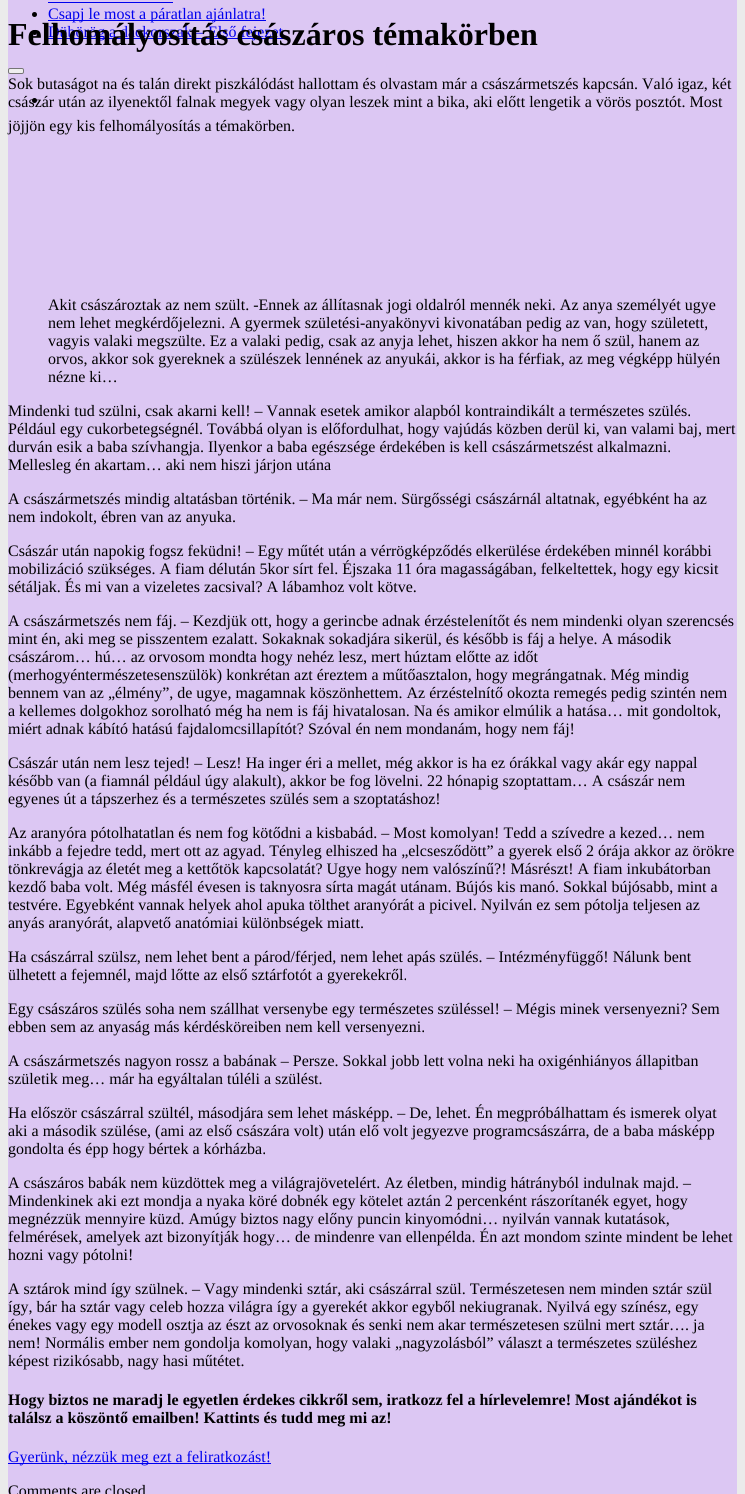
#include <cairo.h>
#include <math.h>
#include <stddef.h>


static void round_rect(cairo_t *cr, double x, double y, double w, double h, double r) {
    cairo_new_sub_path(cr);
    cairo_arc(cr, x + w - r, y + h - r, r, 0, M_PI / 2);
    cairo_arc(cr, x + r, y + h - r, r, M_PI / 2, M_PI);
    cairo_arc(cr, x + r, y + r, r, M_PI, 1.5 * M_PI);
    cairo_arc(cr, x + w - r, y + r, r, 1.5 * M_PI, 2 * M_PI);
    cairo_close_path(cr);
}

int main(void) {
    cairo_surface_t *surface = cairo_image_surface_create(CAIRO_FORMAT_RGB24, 745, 1494);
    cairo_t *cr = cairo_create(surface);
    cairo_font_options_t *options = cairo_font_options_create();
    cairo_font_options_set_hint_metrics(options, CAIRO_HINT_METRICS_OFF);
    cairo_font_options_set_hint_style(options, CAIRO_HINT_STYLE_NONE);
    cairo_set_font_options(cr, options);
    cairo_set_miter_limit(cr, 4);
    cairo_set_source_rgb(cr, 0.918, 0.918, 0.918);
    cairo_paint(cr);
    cairo_set_source_rgb(cr, 0.863, 0.78, 0.953);
    cairo_rectangle(cr, 8, 0, 729, 1494);
    cairo_fill(cr);
    cairo_set_source_rgb(cr, 0, 0, 0.933);
    cairo_rectangle(cr, 48, 2, 125, 1);
    cairo_fill(cr);
    cairo_set_source_rgb(cr, 0, 0, 0);
    cairo_arc(cr, 34.5, 14.5, 2.5, 0, 2 * M_PI);
    cairo_fill(cr);
    cairo_set_source_rgb(cr, 0, 0, 0.933);
    cairo_rectangle(cr, 48, 20, 218, 1);
    cairo_fill(cr);
    cairo_select_font_face(cr, "Liberation Serif", CAIRO_FONT_SLANT_NORMAL, CAIRO_FONT_WEIGHT_NORMAL);
    cairo_set_font_size(cr, 16);
    cairo_move_to(cr, 48, 19);
    cairo_show_text(cr, "Csapj le most a páratlan ajánlatra!");
    cairo_set_source_rgb(cr, 0, 0, 0);
    cairo_new_path(cr);
    cairo_arc(cr, 34.5, 32.5, 2.5, 0, 2 * M_PI);
    cairo_fill(cr);
    cairo_set_source_rgb(cr, 0, 0, 0.933);
    cairo_rectangle(cr, 48, 38, 235, 1);
    cairo_fill(cr);
    cairo_move_to(cr, 48, 37);
    cairo_show_text(cr, "Dübörög a dackorszak – Első fejezet");
    cairo_set_source_rgb(cr, 0.937, 0.937, 0.937);
    round_rect(cr, 8.5, 68.5, 15, 5, 1.5);
    cairo_fill_preserve(cr);
    cairo_set_source_rgb(cr, 0.463, 0.463, 0.463);
    cairo_set_line_width(cr, 1);
    cairo_stroke(cr);
    cairo_set_source_rgb(cr, 0, 0, 0);
    cairo_arc(cr, 34.5, 100.5, 2.5, 0, 2 * M_PI);
    cairo_fill(cr);
    cairo_select_font_face(cr, "Liberation Serif", CAIRO_FONT_SLANT_NORMAL, CAIRO_FONT_WEIGHT_BOLD);
    cairo_set_font_size(cr, 32);
    cairo_move_to(cr, 8, 45);
    cairo_show_text(cr, "Felhomályosítás császáros témakörben");
    cairo_select_font_face(cr, "Liberation Serif", CAIRO_FONT_SLANT_NORMAL, CAIRO_FONT_WEIGHT_NORMAL);
    cairo_set_font_size(cr, 16);
    cairo_move_to(cr, 8, 89);
    cairo_show_text(cr, "Sok butaságot na és talán direkt piszkálódást hallottam és olvastam már a császármetszés kapcsán. Való igaz, két");
    cairo_move_to(cr, 8, 107);
    cairo_show_text(cr, "császár után az ilyenektől falnak megyek vagy olyan leszek mint a bika, aki előtt lengetik a vörös posztót. Most");
    cairo_move_to(cr, 8, 131);
    cairo_show_text(cr, "jöjjön egy kis felhomályosítás a témakörben.");
    cairo_move_to(cr, 48, 310);
    cairo_show_text(cr, "Akit császároztak az nem szült. -Ennek az állítasnak jogi oldalról mennék neki. Az anya személyét ugye");
    cairo_move_to(cr, 48, 328);
    cairo_show_text(cr, "nem lehet megkérdőjelezni. A gyermek születési-anyakönyvi kivonatában pedig az van, hogy született,");
    cairo_move_to(cr, 48, 346);
    cairo_show_text(cr, "vagyis valaki megszülte. Ez a valaki pedig, csak az anyja lehet, hiszen akkor ha nem ő szül, hanem az");
    cairo_move_to(cr, 48, 364);
    cairo_show_text(cr, "orvos, akkor sok gyereknek a szülészek lennének az anyukái, akkor is ha férfiak, az meg végképp hülyén");
    cairo_move_to(cr, 48, 382);
    cairo_show_text(cr, "nézne ki…");
    cairo_move_to(cr, 8, 416);
    cairo_show_text(cr, "Mindenki tud szülni, csak akarni kell! – Vannak esetek amikor alapból kontraindikált a természetes szülés.");
    cairo_move_to(cr, 8, 434);
    cairo_show_text(cr, "Például egy cukorbetegségnél. Továbbá olyan is előfordulhat, hogy vajúdás közben derül ki, van valami baj, mert");
    cairo_move_to(cr, 8, 452);
    cairo_show_text(cr, "durván esik a baba szívhangja. Ilyenkor a baba egészsége érdekében is kell császármetszést alkalmazni.");
    cairo_move_to(cr, 8, 470);
    cairo_show_text(cr, "Mellesleg én akartam… aki nem hiszi járjon utána");
    cairo_move_to(cr, 8, 504);
    cairo_show_text(cr, "A császármetszés mindig altatásban történik. – Ma már nem. Sürgősségi császárnál altatnak, egyébként ha az");
    cairo_move_to(cr, 8, 522);
    cairo_show_text(cr, "nem indokolt, ébren van az anyuka.");
    cairo_move_to(cr, 8, 556);
    cairo_show_text(cr, "Császár után napokig fogsz feküdni! – Egy műtét után a vérrögképződés elkerülése érdekében minnél korábbi");
    cairo_move_to(cr, 8, 574);
    cairo_show_text(cr, "mobilizáció szükséges. A fiam délután 5kor sírt fel. Éjszaka 11 óra magasságában, felkeltettek, hogy egy kicsit");
    cairo_move_to(cr, 8, 592);
    cairo_show_text(cr, "sétáljak. És mi van a vizeletes zacsival? A lábamhoz volt kötve.");
    cairo_move_to(cr, 8, 626);
    cairo_show_text(cr, "A császármetszés nem fáj. – Kezdjük ott, hogy a gerincbe adnak érzéstelenítőt és nem mindenki olyan szerencsés");
    cairo_move_to(cr, 8, 644);
    cairo_show_text(cr, "mint én, aki meg se pisszentem ezalatt. Sokaknak sokadjára sikerül, és később is fáj a helye. A második");
    cairo_move_to(cr, 8, 662);
    cairo_show_text(cr, "császárom… hú… az orvosom mondta hogy nehéz lesz, mert húztam előtte az időt");
    cairo_move_to(cr, 8, 680);
    cairo_show_text(cr, "(merhogyéntermészetesenszülök) konkrétan azt éreztem a műtőasztalon, hogy megrángatnak. Még mindig");
    cairo_move_to(cr, 8, 698);
    cairo_show_text(cr, "bennem van az „élmény”, de ugye, magamnak köszönhettem. Az érzéstelnítő okozta remegés pedig szintén nem");
    cairo_move_to(cr, 8, 716);
    cairo_show_text(cr, "a kellemes dolgokhoz sorolható még ha nem is fáj hivatalosan. Na és amikor elmúlik a hatása… mit gondoltok,");
    cairo_move_to(cr, 8, 734);
    cairo_show_text(cr, "miért adnak kábító hatású fajdalomcsillapítót? Szóval én nem mondanám, hogy nem fáj!");
    cairo_move_to(cr, 8, 768);
    cairo_show_text(cr, "Császár után nem lesz tejed! – Lesz! Ha inger éri a mellet, még akkor is ha ez órákkal vagy akár egy nappal");
    cairo_move_to(cr, 8, 786);
    cairo_show_text(cr, "később van (a fiamnál például úgy alakult), akkor be fog lövelni. 22 hónapig szoptattam… A császár nem");
    cairo_move_to(cr, 8, 804);
    cairo_show_text(cr, "egyenes út a tápszerhez és a természetes szülés sem a szoptatáshoz!");
    cairo_move_to(cr, 8, 838);
    cairo_show_text(cr, "Az aranyóra pótolhatatlan és nem fog kötődni a kisbabád. – Most komolyan! Tedd a szívedre a kezed… nem");
    cairo_move_to(cr, 8, 856);
    cairo_show_text(cr, "inkább a fejedre tedd, mert ott az agyad. Tényleg elhiszed ha „elcsesződött” a gyerek első 2 órája akkor az örökre");
    cairo_move_to(cr, 8, 874);
    cairo_show_text(cr, "tönkrevágja az életét meg a kettőtök kapcsolatát? Ugye hogy nem valószínű?! Másrészt! A fiam inkubátorban");
    cairo_move_to(cr, 8, 892);
    cairo_show_text(cr, "kezdő baba volt. Még másfél évesen is taknyosra sírta magát utánam. Bújós kis manó. Sokkal bújósabb, mint a");
    cairo_move_to(cr, 8, 910);
    cairo_show_text(cr, "testvére. Egyebként vannak helyek ahol apuka tölthet aranyórát a picivel. Nyilván ez sem pótolja teljesen az");
    cairo_move_to(cr, 8, 928);
    cairo_show_text(cr, "anyás aranyórát, alapvető anatómiai különbségek miatt.");
    cairo_move_to(cr, 8, 962);
    cairo_show_text(cr, "Ha császárral szülsz, nem lehet bent a párod/férjed, nem lehet apás szülés. – Intézményfüggő! Nálunk bent");
    cairo_move_to(cr, 8, 980);
    cairo_show_text(cr, "ülhetett a fejemnél, majd lőtte az első sztárfotót a gyerekekről.");
    cairo_move_to(cr, 8, 1014);
    cairo_show_text(cr, "Egy császáros szülés soha nem szállhat versenybe egy természetes szüléssel! – Mégis minek versenyezni? Sem");
    cairo_move_to(cr, 8, 1032);
    cairo_show_text(cr, "ebben sem az anyaság más kérdésköreiben nem kell versenyezni.");
    cairo_move_to(cr, 8, 1066);
    cairo_show_text(cr, "A császármetszés nagyon rossz a babának – Persze. Sokkal jobb lett volna neki ha oxigénhiányos állapitban");
    cairo_move_to(cr, 8, 1084);
    cairo_show_text(cr, "születik meg… már ha egyáltalan túléli a szülést.");
    cairo_move_to(cr, 8, 1118);
    cairo_show_text(cr, "Ha először császárral szültél, másodjára sem lehet másképp. – De, lehet. Én megpróbálhattam és ismerek olyat");
    cairo_move_to(cr, 8, 1136);
    cairo_show_text(cr, "aki a második szülése, (ami az első császára volt) után elő volt jegyezve programcsászárra, de a baba másképp");
    cairo_move_to(cr, 8, 1154);
    cairo_show_text(cr, "gondolta és épp hogy bértek a kórházba.");
    cairo_move_to(cr, 8, 1188);
    cairo_show_text(cr, "A császáros babák nem küzdöttek meg a világrajövetelért. Az életben, mindig hátrányból indulnak majd. –");
    cairo_move_to(cr, 8, 1206);
    cairo_show_text(cr, "Mindenkinek aki ezt mondja a nyaka köré dobnék egy kötelet aztán 2 percenként rászorítanék egyet, hogy");
    cairo_move_to(cr, 8, 1224);
    cairo_show_text(cr, "megnézzük mennyire küzd. Amúgy biztos nagy előny puncin kinyomódni… nyilván vannak kutatások,");
    cairo_move_to(cr, 8, 1242);
    cairo_show_text(cr, "felmérések, amelyek azt bizonyítják hogy… de mindenre van ellenpélda. Én azt mondom szinte mindent be lehet");
    cairo_move_to(cr, 8, 1260);
    cairo_show_text(cr, "hozni vagy pótolni!");
    cairo_move_to(cr, 8, 1294);
    cairo_show_text(cr, "A sztárok mind így szülnek. – Vagy mindenki sztár, aki császárral szül. Természetesen nem minden sztár szül");
    cairo_move_to(cr, 8, 1312);
    cairo_show_text(cr, "így, bár ha sztár vagy celeb hozza világra így a gyerekét akkor egyből nekiugranak. Nyilvá egy színész, egy");
    cairo_move_to(cr, 8, 1330);
    cairo_show_text(cr, "énekes vagy egy modell osztja az észt az orvosoknak és senki nem akar természetesen szülni mert sztár…. ja");
    cairo_move_to(cr, 8, 1348);
    cairo_show_text(cr, "nem! Normális ember nem gondolja komolyan, hogy valaki „nagyzolásból” választ a természetes szüléshez");
    cairo_move_to(cr, 8, 1366);
    cairo_show_text(cr, "képest rizikósabb, nagy hasi műtétet.");
    cairo_select_font_face(cr, "Liberation Serif", CAIRO_FONT_SLANT_NORMAL, CAIRO_FONT_WEIGHT_BOLD);
    cairo_move_to(cr, 8, 1405);
    cairo_show_text(cr, "Hogy biztos ne maradj le egyetlen érdekes cikkről sem, iratkozz fel a hírlevelemre! Most ajándékot is");
    cairo_move_to(cr, 8, 1423);
    cairo_show_text(cr, "találsz a köszöntő emailben! Kattints és tudd meg mi az!");
    cairo_set_source_rgb(cr, 0, 0, 0.933);
    cairo_rectangle(cr, 8, 1463, 263, 1);
    cairo_fill(cr);
    cairo_select_font_face(cr, "Liberation Serif", CAIRO_FONT_SLANT_NORMAL, CAIRO_FONT_WEIGHT_NORMAL);
    cairo_move_to(cr, 8, 1462);
    cairo_show_text(cr, "Gyerünk, nézzük meg ezt a feliratkozást!");
    cairo_set_source_rgb(cr, 0, 0, 0);
    cairo_move_to(cr, 8, 1496);
    cairo_show_text(cr, "Comments are closed");
    cairo_surface_write_to_png(surface, "page.png");
    cairo_font_options_destroy(options);
    cairo_destroy(cr);
    cairo_surface_destroy(surface);
    return 0;
}
